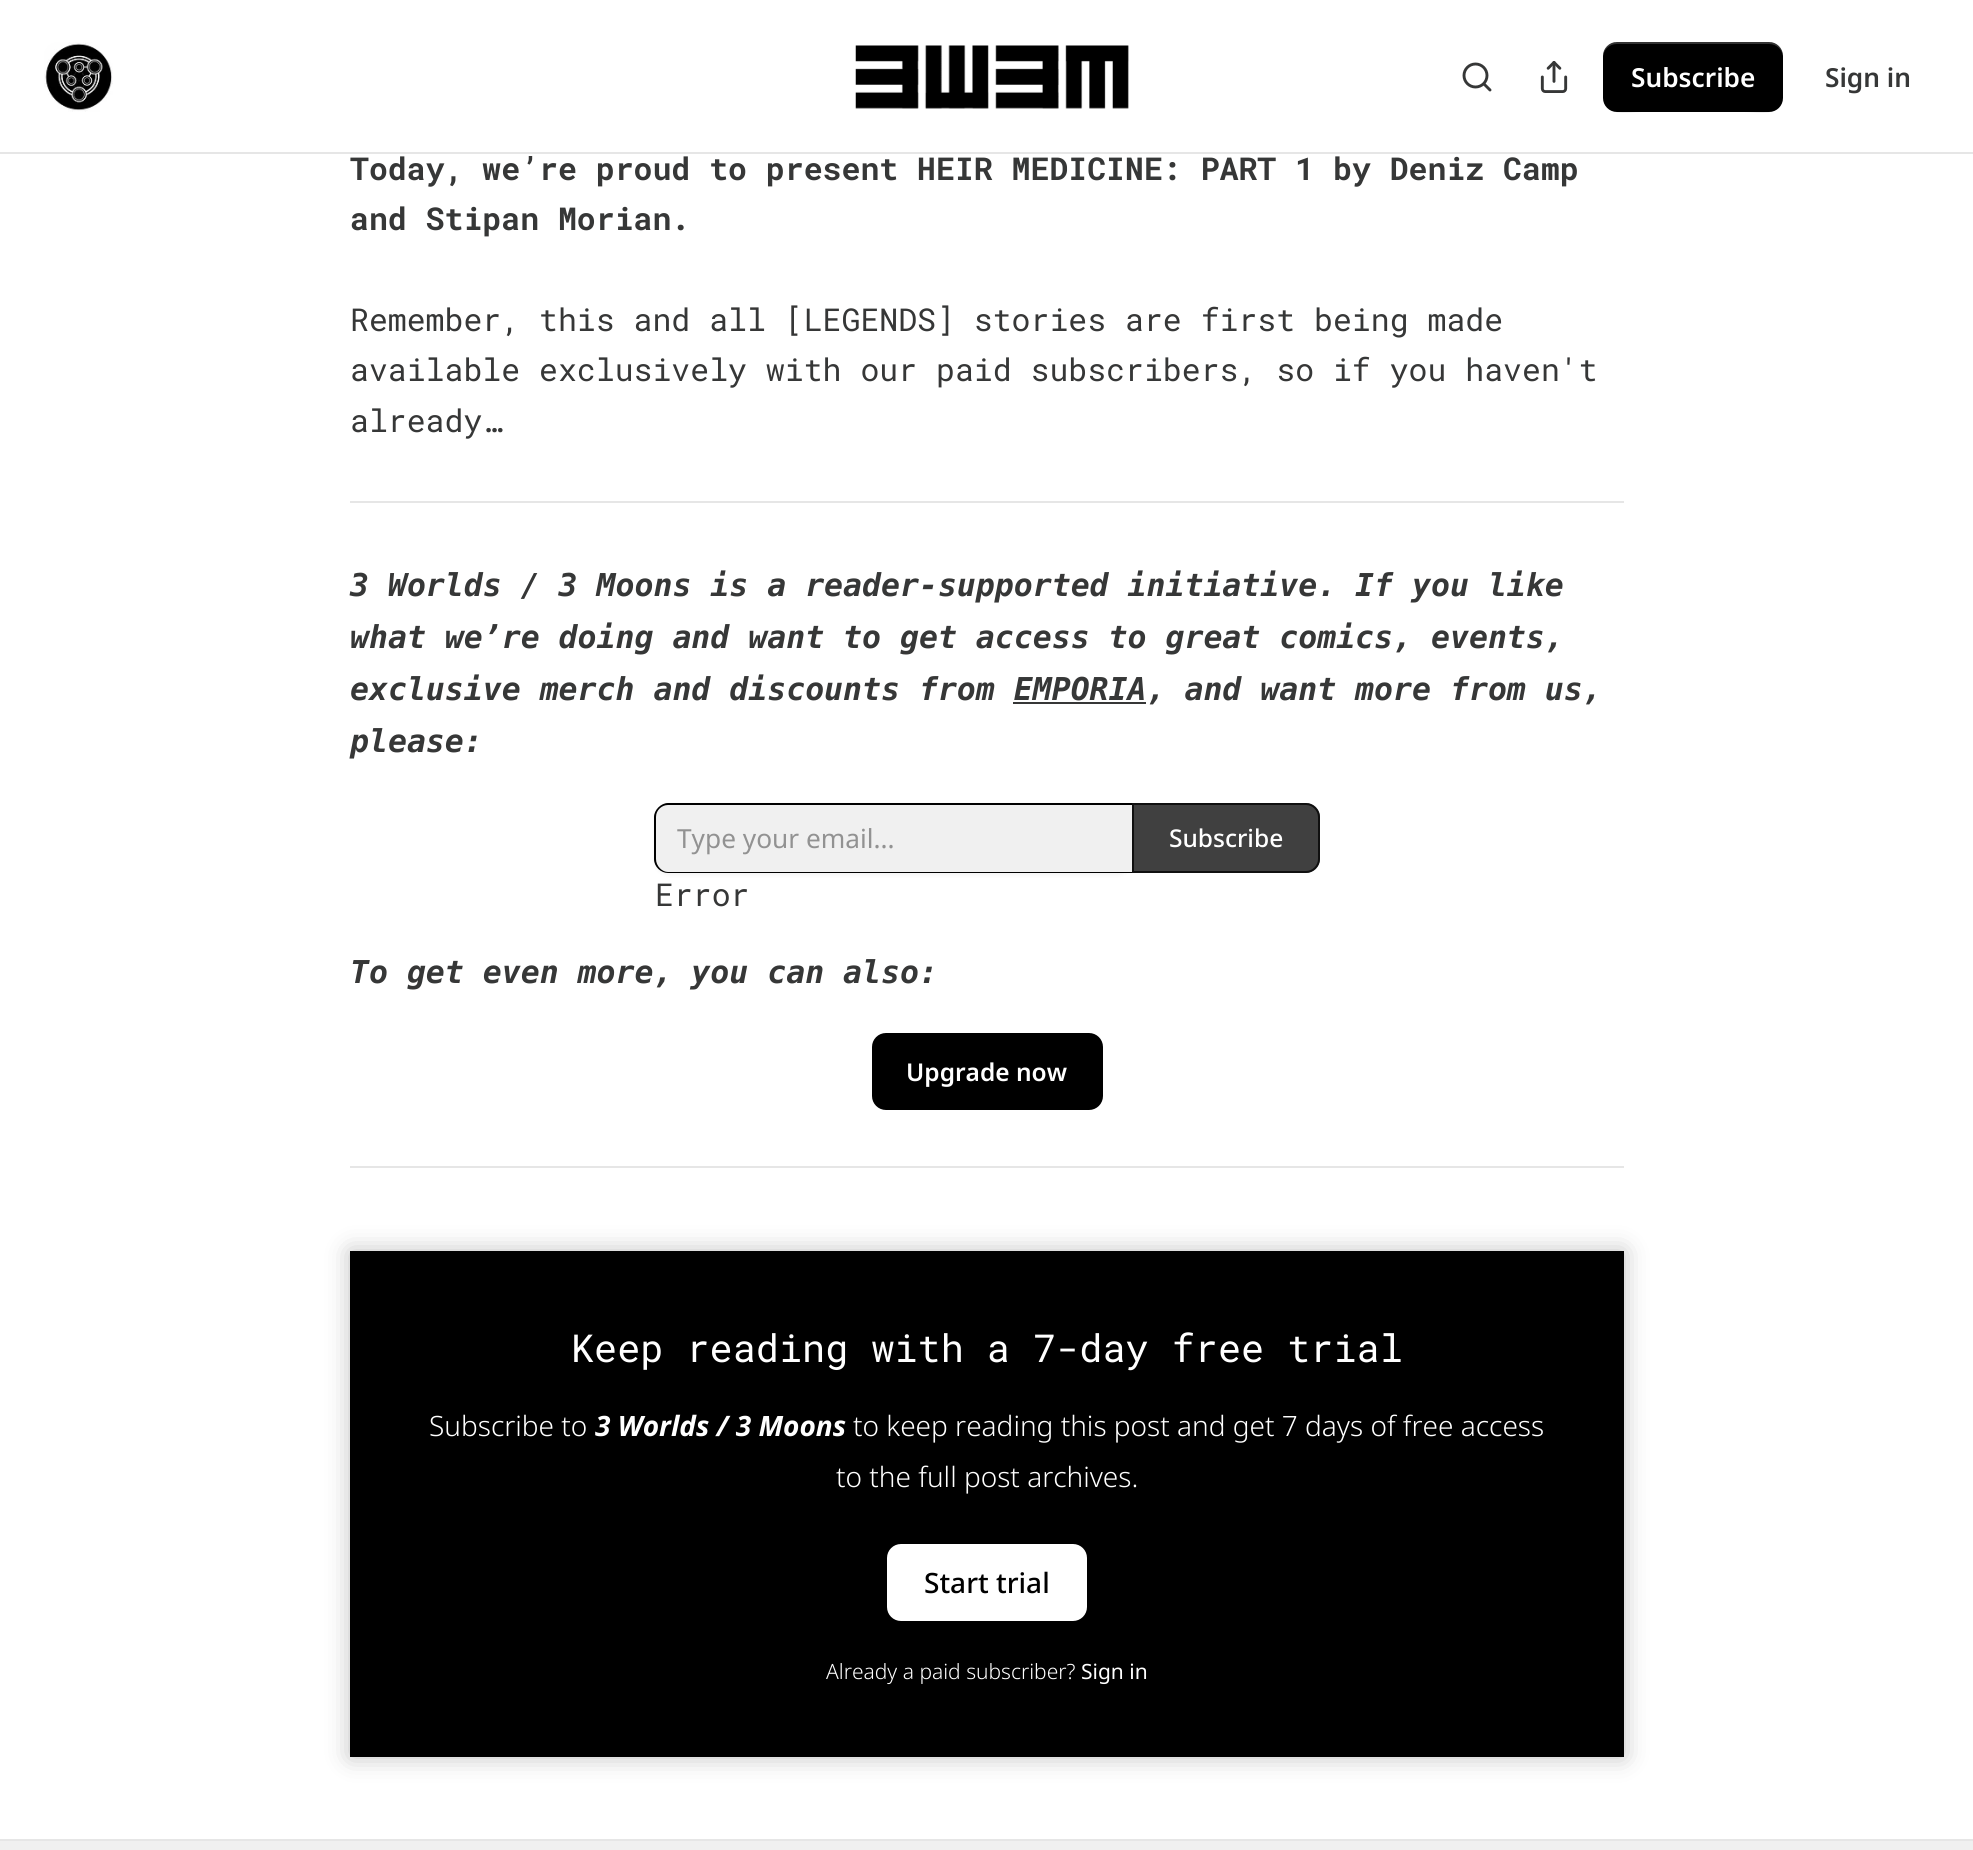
#include <cairo.h>
#include <math.h>
#include <stddef.h>


static void round_rect(cairo_t *cr, double x, double y, double w, double h, double r) {
    cairo_new_sub_path(cr);
    cairo_arc(cr, x + w - r, y + h - r, r, 0, M_PI / 2);
    cairo_arc(cr, x + r, y + h - r, r, M_PI / 2, M_PI);
    cairo_arc(cr, x + r, y + r, r, M_PI, 1.5 * M_PI);
    cairo_arc(cr, x + w - r, y + r, r, 1.5 * M_PI, 2 * M_PI);
    cairo_close_path(cr);
}

static void shadow(cairo_t *cr, double x, double y, double w, double h, double r, double blur, double alpha) {
    cairo_push_group_with_content(cr, CAIRO_CONTENT_ALPHA);
    cairo_set_operator(cr, CAIRO_OPERATOR_SOURCE);
    for (int i = 15; i >= -15 && fmin(w, h) + blur * i / 3 > 0; i -= 2) {
        double e = blur * i / 6;
        cairo_set_source_rgba(cr, 0, 0, 0, alpha * erfc((i - 1) / 8.5) / 2);
        round_rect(cr, x - e, y - e, w + 2 * e, h + 2 * e, fmax(0, fmin(r + e + blur * .6, fmin(w, h) / 2 + e)));
        cairo_fill(cr);
    }
    cairo_pattern_t *soft = cairo_pop_group(cr);
    cairo_mask(cr, soft);
    cairo_pattern_destroy(soft);
}

static void picture(cairo_t *cr, const char *path, double x, double y, double w, double h) {
    cairo_surface_t *image = cairo_image_surface_create_from_png(path);
    cairo_save(cr);
    cairo_set_source_surface(cr, image, x, y);
    cairo_rectangle(cr, x, y, w, h);
    cairo_fill(cr);
    cairo_restore(cr);
    cairo_surface_destroy(image);
}

int main(void) {
    cairo_surface_t *surface = cairo_image_surface_create(CAIRO_FORMAT_RGB24, 1973, 1850);
    cairo_t *cr = cairo_create(surface);
    cairo_font_options_t *options = cairo_font_options_create();
    cairo_font_options_set_hint_metrics(options, CAIRO_HINT_METRICS_OFF);
    cairo_font_options_set_hint_style(options, CAIRO_HINT_STYLE_NONE);
    cairo_set_font_options(cr, options);
    cairo_set_miter_limit(cr, 4);
    cairo_set_source_rgb(cr, 1, 1, 1);
    cairo_paint(cr);
    cairo_set_source_rgb(cr, 0.902, 0.902, 0.902);
    cairo_rectangle(cr, 0, 152, 1973, 2);
    cairo_fill(cr);
    picture(cr, "img1.png", 44, 42, 69, 70);
    picture(cr, "img2.png", 855, 45, 274, 64);
    cairo_arc(cr, 1475.5, 75.5, 11.5, 0, 2 * M_PI);
    cairo_set_source_rgb(cr, 0.212, 0.216, 0.216);
    cairo_set_line_width(cr, 2.9);
    cairo_stroke(cr);
    cairo_new_path(cr);
    cairo_move_to(cr, 1490, 90);
    cairo_line_to(cr, 1484, 84);
    cairo_set_line_cap(cr, CAIRO_LINE_CAP_ROUND);
    cairo_set_line_join(cr, CAIRO_LINE_JOIN_ROUND);
    cairo_stroke(cr);
    picture(cr, "img3.png", 1540, 61, 28, 32);
    cairo_set_source_rgb(cr, 0, 0, 0);
    round_rect(cr, 1603, 42, 180, 70, 14);
    cairo_fill(cr);
    cairo_set_source_rgba(cr, 0, 0, 0, 0.1);
    cairo_new_path(cr);
    cairo_move_to(cr, 1603, 96);
    cairo_curve_to(cr, 1603, 118, 1627, 112, 1642, 112);
    cairo_line_to(cr, 1744, 112);
    cairo_curve_to(cr, 1759, 112, 1783, 118, 1783, 96);
    cairo_curve_to(cr, 1783, 104, 1777, 110, 1769, 110);
    cairo_line_to(cr, 1617, 110);
    cairo_curve_to(cr, 1609, 110, 1603, 104, 1603, 96);
    cairo_close_path(cr);
    cairo_fill(cr);
    cairo_set_source_rgba(cr, 1, 1, 1, 0.2);
    cairo_new_path(cr);
    cairo_move_to(cr, 1617, 44);
    cairo_line_to(cr, 1769, 44);
    cairo_curve_to(cr, 1777, 44, 1783, 50, 1783, 58);
    cairo_curve_to(cr, 1783, 36, 1759, 42, 1744, 42);
    cairo_line_to(cr, 1642, 42);
    cairo_curve_to(cr, 1627, 42, 1603, 36, 1603, 58);
    cairo_curve_to(cr, 1603, 50, 1609, 44, 1617, 44);
    cairo_close_path(cr);
    cairo_fill(cr);
    cairo_select_font_face(cr, "Noto Sans SemiBold", CAIRO_FONT_SLANT_NORMAL, CAIRO_FONT_WEIGHT_NORMAL);
    cairo_set_font_size(cr, 26.25);
    cairo_set_source_rgb(cr, 1, 1, 1);
    cairo_move_to(cr, 1631, 87);
    cairo_show_text(cr, "Subscribe");
    cairo_set_source_rgb(cr, 0.212, 0.216, 0.216);
    cairo_move_to(cr, 1825, 87);
    cairo_show_text(cr, "Sign in");
    cairo_select_font_face(cr, "Roboto Mono", CAIRO_FONT_SLANT_NORMAL, CAIRO_FONT_WEIGHT_BOLD);
    cairo_set_font_size(cr, 31.5);
    cairo_move_to(cr, 350, 180);
    cairo_show_text(cr, "Today, we’re proud to present HEIR MEDICINE: PART 1 by Deniz Camp");
    cairo_move_to(cr, 350, 230);
    cairo_show_text(cr, "and Stipan Morian.");
    cairo_select_font_face(cr, "Roboto Mono", CAIRO_FONT_SLANT_NORMAL, CAIRO_FONT_WEIGHT_NORMAL);
    cairo_move_to(cr, 350, 331);
    cairo_show_text(cr, "Remember, this and all [LEGENDS] stories are first being made");
    cairo_move_to(cr, 350, 381);
    cairo_show_text(cr, "available exclusively with our paid subscribers, so if you haven't");
    cairo_move_to(cr, 350, 432);
    cairo_show_text(cr, "already…");
    cairo_set_source_rgb(cr, 0.902, 0.902, 0.902);
    cairo_rectangle(cr, 350, 501, 1274, 2);
    cairo_fill(cr);
    cairo_select_font_face(cr, "DejaVu Sans Mono", CAIRO_FONT_SLANT_ITALIC, CAIRO_FONT_WEIGHT_BOLD);
    cairo_set_source_rgb(cr, 0.212, 0.216, 0.216);
    cairo_move_to(cr, 350, 596);
    cairo_show_text(cr, "3 Worlds / 3 Moons is a reader-supported initiative. If you like");
    cairo_move_to(cr, 350, 648);
    cairo_show_text(cr, "what we’re doing and want to get access to great comics, events,");
    cairo_move_to(cr, 350, 700);
    cairo_show_text(cr, "exclusive merch and discounts from EMPORIA, and want more from us,");
    cairo_rectangle(cr, 1013, 702, 133, 2);
    cairo_fill(cr);
    cairo_move_to(cr, 350, 752);
    cairo_show_text(cr, "please:");
    cairo_set_source_rgb(cr, 0, 0, 0);
    shadow(cr, 655, 805, 477, 70, 14, 2, 0.05);
    cairo_set_source_rgb(cr, 0.941, 0.941, 0.941);
    cairo_new_path(cr);
    cairo_move_to(cr, 668, 805);
    cairo_line_to(cr, 1132, 805);
    cairo_line_to(cr, 1132, 872);
    cairo_line_to(cr, 668, 872);
    cairo_curve_to(cr, 661.5, 872, 656, 866.5, 656, 860);
    cairo_line_to(cr, 656, 817);
    cairo_curve_to(cr, 656, 810.5, 661.5, 805, 668, 805);
    cairo_close_path(cr);
    cairo_fill(cr);
    cairo_set_source_rgb(cr, 0, 0, 0);
    cairo_set_fill_rule(cr, CAIRO_FILL_RULE_EVEN_ODD);
    cairo_new_path(cr);
    cairo_move_to(cr, 668, 803);
    cairo_line_to(cr, 1132, 803);
    cairo_line_to(cr, 1132, 873);
    cairo_line_to(cr, 668, 873);
    cairo_curve_to(cr, 661, 873, 654, 867, 654, 859);
    cairo_line_to(cr, 654, 817);
    cairo_curve_to(cr, 654, 810, 661, 803, 668, 803);
    cairo_close_path(cr);
    cairo_move_to(cr, 668, 805);
    cairo_line_to(cr, 1132, 805);
    cairo_line_to(cr, 1132, 872);
    cairo_line_to(cr, 668, 872);
    cairo_curve_to(cr, 662, 872, 656, 866, 656, 859);
    cairo_line_to(cr, 656, 817);
    cairo_curve_to(cr, 656, 810, 662, 805, 668, 805);
    cairo_close_path(cr);
    cairo_fill(cr);
    cairo_select_font_face(cr, "Noto Sans", CAIRO_FONT_SLANT_NORMAL, CAIRO_FONT_WEIGHT_NORMAL);
    cairo_set_font_size(cr, 26.25);
    cairo_set_source_rgb(cr, 0.573, 0.573, 0.573);
    cairo_move_to(cr, 677, 848);
    cairo_show_text(cr, "Type your email...");
    cairo_set_source_rgba(cr, 0, 0, 0, 0.75);
    cairo_new_path(cr);
    cairo_move_to(cr, 1132, 803);
    cairo_line_to(cr, 1306, 803);
    cairo_curve_to(cr, 1313.5, 803, 1320, 809.5, 1320, 817);
    cairo_line_to(cr, 1320, 859);
    cairo_curve_to(cr, 1320, 866.5, 1313.5, 873, 1306, 873);
    cairo_line_to(cr, 1132, 873);
    cairo_close_path(cr);
    cairo_fill(cr);
    cairo_new_path(cr);
    cairo_move_to(cr, 1133, 804);
    cairo_line_to(cr, 1306, 804);
    cairo_curve_to(cr, 1313, 804, 1319, 810, 1319, 817);
    cairo_line_to(cr, 1319, 859);
    cairo_curve_to(cr, 1319, 866, 1313, 872, 1306, 872);
    cairo_line_to(cr, 1133, 872);
    cairo_close_path(cr);
    cairo_set_line_width(cr, 2);
    cairo_set_line_cap(cr, CAIRO_LINE_CAP_BUTT);
    cairo_set_line_join(cr, CAIRO_LINE_JOIN_MITER);
    cairo_stroke(cr);
    cairo_select_font_face(cr, "Noto Sans Medium", CAIRO_FONT_SLANT_NORMAL, CAIRO_FONT_WEIGHT_NORMAL);
    cairo_set_font_size(cr, 24.5);
    cairo_set_source_rgb(cr, 1, 1, 1);
    cairo_move_to(cr, 1169, 847);
    cairo_show_text(cr, "Subscribe");
    cairo_select_font_face(cr, "Roboto Mono", CAIRO_FONT_SLANT_NORMAL, CAIRO_FONT_WEIGHT_NORMAL);
    cairo_set_font_size(cr, 31.5);
    cairo_set_source_rgb(cr, 0.212, 0.216, 0.216);
    cairo_move_to(cr, 655, 906);
    cairo_show_text(cr, "Error");
    cairo_select_font_face(cr, "DejaVu Sans Mono", CAIRO_FONT_SLANT_ITALIC, CAIRO_FONT_WEIGHT_BOLD);
    cairo_move_to(cr, 350, 983);
    cairo_show_text(cr, "To get even more, you can also:");
    cairo_set_source_rgb(cr, 0, 0, 0);
    round_rect(cr, 872, 1033, 231, 77, 14);
    cairo_fill(cr);
    cairo_select_font_face(cr, "Noto Sans SemiBold", CAIRO_FONT_SLANT_NORMAL, CAIRO_FONT_WEIGHT_NORMAL);
    cairo_set_font_size(cr, 24.5);
    cairo_set_source_rgb(cr, 1, 1, 1);
    cairo_move_to(cr, 906, 1081);
    cairo_show_text(cr, "Upgrade now");
    cairo_set_source_rgb(cr, 0.902, 0.902, 0.902);
    cairo_rectangle(cr, 350, 1166, 1274, 2);
    cairo_fill(cr);
    cairo_set_source_rgb(cr, 0, 0, 0);
    cairo_rectangle(cr, 350, 1251, 1274, 506);
    cairo_fill(cr);
    cairo_set_source_rgb(cr, 1, 1, 1);
    round_rect(cr, 888, 1545, 198, 75, 13);
    cairo_fill_preserve(cr);
    cairo_stroke(cr);
    cairo_save(cr);
    cairo_new_path(cr);
    cairo_move_to(cr, 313, 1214);
    cairo_line_to(cr, 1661, 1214);
    cairo_line_to(cr, 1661, 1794);
    cairo_line_to(cr, 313, 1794);
    cairo_close_path(cr);
    cairo_move_to(cr, 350, 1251);
    cairo_line_to(cr, 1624, 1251);
    cairo_line_to(cr, 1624, 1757);
    cairo_line_to(cr, 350, 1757);
    cairo_close_path(cr);
    cairo_clip(cr);
    cairo_set_source_rgb(cr, 0, 0, 0);
    shadow(cr, 350, 1251, 1274, 506, 0, 12, 0.25);
    cairo_restore(cr);
    cairo_select_font_face(cr, "Roboto Mono", CAIRO_FONT_SLANT_NORMAL, CAIRO_FONT_WEIGHT_NORMAL);
    cairo_set_font_size(cr, 38.5);
    cairo_move_to(cr, 571, 1362);
    cairo_show_text(cr, "Keep reading with a 7-day free trial");
    cairo_select_font_face(cr, "Noto Sans Light", CAIRO_FONT_SLANT_NORMAL, CAIRO_FONT_WEIGHT_NORMAL);
    cairo_set_font_size(cr, 28);
    cairo_move_to(cr, 429, 1436);
    cairo_show_text(cr, "Subscribe to");
    cairo_select_font_face(cr, "Noto Sans", CAIRO_FONT_SLANT_ITALIC, CAIRO_FONT_WEIGHT_BOLD);
    cairo_move_to(cr, 595, 1436);
    cairo_show_text(cr, "3 Worlds / 3 Moons");
    cairo_select_font_face(cr, "Noto Sans Light", CAIRO_FONT_SLANT_NORMAL, CAIRO_FONT_WEIGHT_NORMAL);
    cairo_move_to(cr, 853, 1436);
    cairo_show_text(cr, "to keep reading this post and get 7 days of free access");
    cairo_move_to(cr, 836, 1487);
    cairo_show_text(cr, "to the full post archives.");
    cairo_select_font_face(cr, "Noto Sans Medium", CAIRO_FONT_SLANT_NORMAL, CAIRO_FONT_WEIGHT_NORMAL);
    cairo_set_source_rgb(cr, 0, 0, 0);
    cairo_move_to(cr, 924, 1593);
    cairo_show_text(cr, "Start trial");
    cairo_select_font_face(cr, "Noto Sans Light", CAIRO_FONT_SLANT_NORMAL, CAIRO_FONT_WEIGHT_NORMAL);
    cairo_set_font_size(cr, 21);
    cairo_set_source_rgb(cr, 1, 1, 1);
    cairo_move_to(cr, 826, 1679);
    cairo_show_text(cr, "Already a paid subscriber?");
    cairo_select_font_face(cr, "Noto Sans", CAIRO_FONT_SLANT_NORMAL, CAIRO_FONT_WEIGHT_NORMAL);
    cairo_move_to(cr, 1081, 1679);
    cairo_show_text(cr, "Sign in");
    cairo_set_source_rgb(cr, 0.941, 0.941, 0.941);
    cairo_rectangle(cr, 0, 1841, 1973, 9);
    cairo_fill(cr);
    cairo_set_source_rgb(cr, 0.902, 0.902, 0.902);
    cairo_rectangle(cr, 0, 1839, 1973, 2);
    cairo_fill(cr);
    cairo_surface_write_to_png(surface, "page.png");
    cairo_font_options_destroy(options);
    cairo_destroy(cr);
    cairo_surface_destroy(surface);
    return 0;
}
